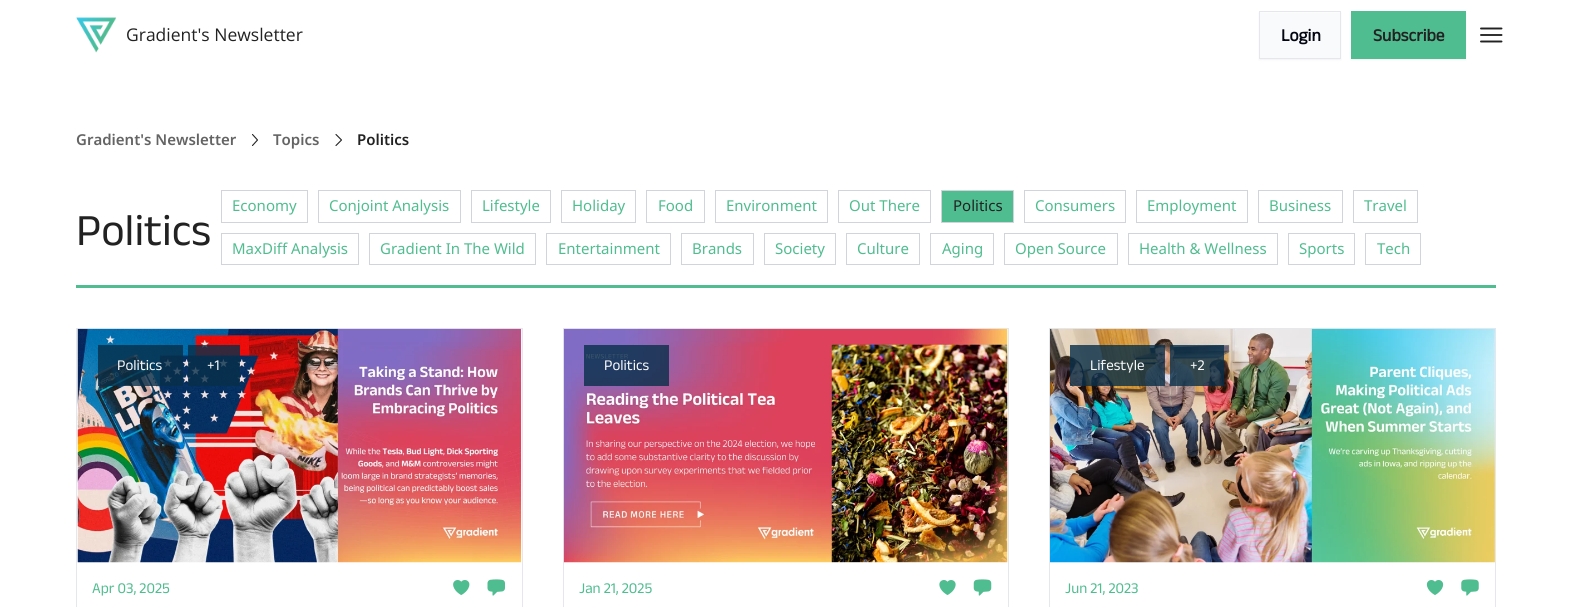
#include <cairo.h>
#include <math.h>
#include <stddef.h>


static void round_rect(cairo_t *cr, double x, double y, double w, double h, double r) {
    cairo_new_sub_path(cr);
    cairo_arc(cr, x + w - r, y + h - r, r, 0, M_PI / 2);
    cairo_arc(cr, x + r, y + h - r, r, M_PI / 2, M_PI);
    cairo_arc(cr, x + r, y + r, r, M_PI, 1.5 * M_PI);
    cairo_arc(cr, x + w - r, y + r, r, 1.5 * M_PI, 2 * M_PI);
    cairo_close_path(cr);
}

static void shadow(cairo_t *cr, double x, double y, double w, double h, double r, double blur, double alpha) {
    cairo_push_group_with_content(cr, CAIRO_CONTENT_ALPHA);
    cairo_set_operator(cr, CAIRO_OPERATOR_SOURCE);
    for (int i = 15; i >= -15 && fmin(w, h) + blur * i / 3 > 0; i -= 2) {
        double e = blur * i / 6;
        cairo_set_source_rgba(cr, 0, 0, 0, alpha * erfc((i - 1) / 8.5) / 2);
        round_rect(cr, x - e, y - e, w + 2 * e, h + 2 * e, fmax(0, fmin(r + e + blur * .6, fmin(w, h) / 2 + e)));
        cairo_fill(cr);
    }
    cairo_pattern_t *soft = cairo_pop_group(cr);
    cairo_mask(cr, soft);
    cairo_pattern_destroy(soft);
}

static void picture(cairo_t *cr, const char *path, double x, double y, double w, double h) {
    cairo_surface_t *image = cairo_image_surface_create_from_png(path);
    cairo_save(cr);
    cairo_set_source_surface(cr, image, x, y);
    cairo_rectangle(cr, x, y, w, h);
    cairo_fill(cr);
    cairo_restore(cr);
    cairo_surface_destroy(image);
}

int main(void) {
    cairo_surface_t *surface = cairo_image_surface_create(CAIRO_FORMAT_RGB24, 1571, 607);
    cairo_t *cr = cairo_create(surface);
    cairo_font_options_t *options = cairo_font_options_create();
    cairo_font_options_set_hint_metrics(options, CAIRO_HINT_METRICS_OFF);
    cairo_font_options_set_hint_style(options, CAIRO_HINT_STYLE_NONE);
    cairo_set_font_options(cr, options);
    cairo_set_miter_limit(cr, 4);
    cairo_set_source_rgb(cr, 1, 1, 1);
    cairo_paint(cr);
    picture(cr, "img1.png", 76, 17, 41, 36);
    cairo_select_font_face(cr, "Open Sans", CAIRO_FONT_SLANT_NORMAL, CAIRO_FONT_WEIGHT_NORMAL);
    cairo_set_font_size(cr, 17.5);
    cairo_set_source_rgb(cr, 0.133, 0.133, 0.133);
    cairo_move_to(cr, 126, 41);
    cairo_show_text(cr, "Gradient's Newsletter");
    cairo_set_source_rgb(cr, 0, 0, 0);
    shadow(cr, 1259, 13, 82, 47, 0, 1, 0.05);
    cairo_set_source_rgb(cr, 0.976, 0.98, 0.984);
    cairo_rectangle(cr, 1260, 13, 80, 45);
    cairo_fill(cr);
    cairo_rectangle(cr, 1259.5, 11.5, 81, 47);
    cairo_set_source_rgb(cr, 0.898, 0.906, 0.922);
    cairo_set_line_width(cr, 1);
    cairo_stroke(cr);
    cairo_select_font_face(cr, "Anek Latin", CAIRO_FONT_SLANT_NORMAL, CAIRO_FONT_WEIGHT_BOLD);
    cairo_set_source_rgb(cr, 0.012, 0.027, 0.071);
    cairo_move_to(cr, 1281, 41);
    cairo_show_text(cr, "Login");
    cairo_set_source_rgb(cr, 0, 0, 0);
    shadow(cr, 1351, 13, 115, 47, 0, 1, 0.05);
    cairo_set_source_rgb(cr, 0.314, 0.741, 0.565);
    cairo_rectangle(cr, 1351, 11, 115, 48);
    cairo_fill(cr);
    cairo_set_source_rgb(cr, 0.133, 0.133, 0.133);
    cairo_move_to(cr, 1373, 41);
    cairo_show_text(cr, "Subscribe");
    cairo_new_path(cr);
    cairo_move_to(cr, 1481, 28.5);
    cairo_line_to(cr, 1501.5, 28.5);
    cairo_move_to(cr, 1481, 35);
    cairo_line_to(cr, 1501.5, 35);
    cairo_move_to(cr, 1481, 41.5);
    cairo_line_to(cr, 1501.5, 41.5);
    cairo_set_line_width(cr, 1.9);
    cairo_set_line_cap(cr, CAIRO_LINE_CAP_ROUND);
    cairo_set_line_join(cr, CAIRO_LINE_JOIN_ROUND);
    cairo_stroke(cr);
    cairo_select_font_face(cr, "Noto Sans SemiBold", CAIRO_FONT_SLANT_NORMAL, CAIRO_FONT_WEIGHT_NORMAL);
    cairo_set_font_size(cr, 15);
    cairo_set_source_rgb(cr, 0.392, 0.392, 0.392);
    cairo_move_to(cr, 76, 145);
    cairo_show_text(cr, "Gradient's Newsletter");
    cairo_new_path(cr);
    cairo_move_to(cr, 252.5, 134.5);
    cairo_line_to(cr, 257.5, 140);
    cairo_line_to(cr, 252.5, 145.5);
    cairo_set_source_rgb(cr, 0.133, 0.133, 0.133);
    cairo_set_line_width(cr, 1.1);
    cairo_stroke(cr);
    cairo_set_source_rgb(cr, 0.392, 0.392, 0.392);
    cairo_move_to(cr, 273, 145);
    cairo_show_text(cr, "Topics");
    cairo_new_path(cr);
    cairo_move_to(cr, 336, 134.5);
    cairo_line_to(cr, 341.5, 140);
    cairo_line_to(cr, 336, 145.5);
    cairo_set_source_rgb(cr, 0.133, 0.133, 0.133);
    cairo_stroke(cr);
    cairo_move_to(cr, 357, 145);
    cairo_show_text(cr, "Politics");
    cairo_set_source_rgb(cr, 0.314, 0.741, 0.565);
    cairo_rectangle(cr, 76, 285, 1420, 3);
    cairo_fill(cr);
    cairo_select_font_face(cr, "Anek Latin Medium", CAIRO_FONT_SLANT_NORMAL, CAIRO_FONT_WEIGHT_NORMAL);
    cairo_set_font_size(cr, 45);
    cairo_set_source_rgb(cr, 0.133, 0.133, 0.133);
    cairo_move_to(cr, 76, 245);
    cairo_show_text(cr, "Politics");
    cairo_rectangle(cr, 221.5, 190.5, 86, 32);
    cairo_set_source_rgb(cr, 0.82, 0.835, 0.859);
    cairo_set_line_width(cr, 1);
    cairo_set_line_cap(cr, CAIRO_LINE_CAP_BUTT);
    cairo_set_line_join(cr, CAIRO_LINE_JOIN_MITER);
    cairo_stroke(cr);
    cairo_select_font_face(cr, "Noto Sans", CAIRO_FONT_SLANT_NORMAL, CAIRO_FONT_WEIGHT_NORMAL);
    cairo_set_font_size(cr, 15);
    cairo_set_source_rgb(cr, 0.314, 0.741, 0.565);
    cairo_move_to(cr, 232, 211);
    cairo_show_text(cr, "Economy");
    cairo_rectangle(cr, 318.5, 190.5, 142, 32);
    cairo_set_source_rgb(cr, 0.82, 0.835, 0.859);
    cairo_stroke(cr);
    cairo_set_source_rgb(cr, 0.314, 0.741, 0.565);
    cairo_move_to(cr, 329, 211);
    cairo_show_text(cr, "Conjoint Analysis");
    cairo_rectangle(cr, 471.5, 190.5, 79, 32);
    cairo_set_source_rgb(cr, 0.82, 0.835, 0.859);
    cairo_stroke(cr);
    cairo_set_source_rgb(cr, 0.314, 0.741, 0.565);
    cairo_move_to(cr, 482, 211);
    cairo_show_text(cr, "Lifestyle");
    cairo_rectangle(cr, 561.5, 190.5, 74, 32);
    cairo_set_source_rgb(cr, 0.82, 0.835, 0.859);
    cairo_stroke(cr);
    cairo_set_source_rgb(cr, 0.314, 0.741, 0.565);
    cairo_move_to(cr, 572, 211);
    cairo_show_text(cr, "Holiday");
    cairo_rectangle(cr, 646.5, 190.5, 58, 32);
    cairo_set_source_rgb(cr, 0.82, 0.835, 0.859);
    cairo_stroke(cr);
    cairo_set_source_rgb(cr, 0.314, 0.741, 0.565);
    cairo_move_to(cr, 658, 211);
    cairo_show_text(cr, "Food");
    cairo_rectangle(cr, 715.5, 190.5, 112, 32);
    cairo_set_source_rgb(cr, 0.82, 0.835, 0.859);
    cairo_stroke(cr);
    cairo_set_source_rgb(cr, 0.314, 0.741, 0.565);
    cairo_move_to(cr, 726, 211);
    cairo_show_text(cr, "Environment");
    cairo_rectangle(cr, 838.5, 190.5, 92, 32);
    cairo_set_source_rgb(cr, 0.82, 0.835, 0.859);
    cairo_stroke(cr);
    cairo_set_source_rgb(cr, 0.314, 0.741, 0.565);
    cairo_move_to(cr, 849, 211);
    cairo_show_text(cr, "Out There");
    cairo_rectangle(cr, 941.5, 190.5, 72, 32);
    cairo_fill_preserve(cr);
    cairo_set_source_rgb(cr, 0.82, 0.835, 0.859);
    cairo_stroke(cr);
    cairo_set_source_rgb(cr, 0.133, 0.133, 0.133);
    cairo_move_to(cr, 953, 211);
    cairo_show_text(cr, "Politics");
    cairo_rectangle(cr, 1024.5, 190.5, 101, 32);
    cairo_set_source_rgb(cr, 0.82, 0.835, 0.859);
    cairo_stroke(cr);
    cairo_set_source_rgb(cr, 0.314, 0.741, 0.565);
    cairo_move_to(cr, 1035, 211);
    cairo_show_text(cr, "Consumers");
    cairo_rectangle(cr, 1136.5, 190.5, 111, 32);
    cairo_set_source_rgb(cr, 0.82, 0.835, 0.859);
    cairo_stroke(cr);
    cairo_set_source_rgb(cr, 0.314, 0.741, 0.565);
    cairo_move_to(cr, 1147, 211);
    cairo_show_text(cr, "Employment");
    cairo_rectangle(cr, 1258.5, 190.5, 84, 32);
    cairo_set_source_rgb(cr, 0.82, 0.835, 0.859);
    cairo_stroke(cr);
    cairo_set_source_rgb(cr, 0.314, 0.741, 0.565);
    cairo_move_to(cr, 1269, 211);
    cairo_show_text(cr, "Business");
    cairo_rectangle(cr, 1353.5, 190.5, 64, 32);
    cairo_set_source_rgb(cr, 0.82, 0.835, 0.859);
    cairo_stroke(cr);
    cairo_set_source_rgb(cr, 0.314, 0.741, 0.565);
    cairo_move_to(cr, 1364, 211);
    cairo_show_text(cr, "Travel");
    cairo_rectangle(cr, 221.5, 233.5, 137, 31);
    cairo_set_source_rgb(cr, 0.82, 0.835, 0.859);
    cairo_stroke(cr);
    cairo_set_source_rgb(cr, 0.314, 0.741, 0.565);
    cairo_move_to(cr, 232, 254);
    cairo_show_text(cr, "MaxDiff Analysis");
    cairo_rectangle(cr, 369.5, 233.5, 166, 31);
    cairo_set_source_rgb(cr, 0.82, 0.835, 0.859);
    cairo_stroke(cr);
    cairo_set_source_rgb(cr, 0.314, 0.741, 0.565);
    cairo_move_to(cr, 380, 254);
    cairo_show_text(cr, "Gradient In The Wild");
    cairo_rectangle(cr, 546.5, 233.5, 124, 31);
    cairo_set_source_rgb(cr, 0.82, 0.835, 0.859);
    cairo_stroke(cr);
    cairo_set_source_rgb(cr, 0.314, 0.741, 0.565);
    cairo_move_to(cr, 558, 254);
    cairo_show_text(cr, "Entertainment");
    cairo_rectangle(cr, 681.5, 233.5, 72, 31);
    cairo_set_source_rgb(cr, 0.82, 0.835, 0.859);
    cairo_stroke(cr);
    cairo_set_source_rgb(cr, 0.314, 0.741, 0.565);
    cairo_move_to(cr, 692, 254);
    cairo_show_text(cr, "Brands");
    cairo_rectangle(cr, 764.5, 233.5, 71, 31);
    cairo_set_source_rgb(cr, 0.82, 0.835, 0.859);
    cairo_stroke(cr);
    cairo_set_source_rgb(cr, 0.314, 0.741, 0.565);
    cairo_move_to(cr, 775, 254);
    cairo_show_text(cr, "Society");
    cairo_rectangle(cr, 846.5, 233.5, 73, 31);
    cairo_set_source_rgb(cr, 0.82, 0.835, 0.859);
    cairo_stroke(cr);
    cairo_set_source_rgb(cr, 0.314, 0.741, 0.565);
    cairo_move_to(cr, 857, 254);
    cairo_show_text(cr, "Culture");
    cairo_rectangle(cr, 930.5, 233.5, 63, 31);
    cairo_set_source_rgb(cr, 0.82, 0.835, 0.859);
    cairo_stroke(cr);
    cairo_set_source_rgb(cr, 0.314, 0.741, 0.565);
    cairo_move_to(cr, 942, 254);
    cairo_show_text(cr, "Aging");
    cairo_rectangle(cr, 1004.5, 233.5, 113, 31);
    cairo_set_source_rgb(cr, 0.82, 0.835, 0.859);
    cairo_stroke(cr);
    cairo_set_source_rgb(cr, 0.314, 0.741, 0.565);
    cairo_move_to(cr, 1015, 254);
    cairo_show_text(cr, "Open Source");
    cairo_rectangle(cr, 1128.5, 233.5, 149, 31);
    cairo_set_source_rgb(cr, 0.82, 0.835, 0.859);
    cairo_stroke(cr);
    cairo_set_source_rgb(cr, 0.314, 0.741, 0.565);
    cairo_move_to(cr, 1139, 254);
    cairo_show_text(cr, "Health & Wellness");
    cairo_rectangle(cr, 1288.5, 233.5, 66, 31);
    cairo_set_source_rgb(cr, 0.82, 0.835, 0.859);
    cairo_stroke(cr);
    cairo_set_source_rgb(cr, 0.314, 0.741, 0.565);
    cairo_move_to(cr, 1299, 254);
    cairo_show_text(cr, "Sports");
    cairo_rectangle(cr, 1365.5, 233.5, 55, 31);
    cairo_set_source_rgb(cr, 0.82, 0.835, 0.859);
    cairo_stroke(cr);
    cairo_set_source_rgb(cr, 0.314, 0.741, 0.565);
    cairo_move_to(cr, 1377, 254);
    cairo_show_text(cr, "Tech");
    cairo_rectangle(cr, 76.5, 328.5, 446, 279);
    cairo_set_source_rgb(cr, 0.898, 0.906, 0.922);
    cairo_stroke(cr);
    picture(cr, "img2.png", 77, 328, 445, 235);
    cairo_set_source_rgba(cr, 0.031, 0.184, 0.286, 0.8);
    cairo_rectangle(cr, 98, 345, 85, 41);
    cairo_fill(cr);
    cairo_select_font_face(cr, "Anek Latin Medium", CAIRO_FONT_SLANT_NORMAL, CAIRO_FONT_WEIGHT_NORMAL);
    cairo_set_source_rgb(cr, 0.976, 0.98, 0.984);
    cairo_move_to(cr, 117, 370);
    cairo_show_text(cr, "Politics");
    cairo_set_source_rgba(cr, 0.031, 0.184, 0.286, 0.8);
    cairo_rectangle(cr, 188, 345, 52, 41);
    cairo_fill(cr);
    cairo_set_source_rgb(cr, 0.976, 0.98, 0.984);
    cairo_move_to(cr, 207, 370);
    cairo_show_text(cr, "+1");
    cairo_set_source_rgb(cr, 0.314, 0.741, 0.565);
    cairo_move_to(cr, 92, 593);
    cairo_show_text(cr, "Apr 03, 2025");
    picture(cr, "img3.png", 453, 580, 17, 15);
    picture(cr, "img4.png", 487, 579, 18, 17);
    cairo_rectangle(cr, 563.5, 328.5, 445, 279);
    cairo_set_source_rgb(cr, 0.898, 0.906, 0.922);
    cairo_stroke(cr);
    picture(cr, "img5.png", 563, 328, 445, 235);
    cairo_set_source_rgba(cr, 0.031, 0.184, 0.286, 0.8);
    cairo_rectangle(cr, 584, 345, 85, 41);
    cairo_fill(cr);
    cairo_set_source_rgb(cr, 0.976, 0.98, 0.984);
    cairo_move_to(cr, 604, 370);
    cairo_show_text(cr, "Politics");
    cairo_set_source_rgb(cr, 0.314, 0.741, 0.565);
    cairo_move_to(cr, 579, 593);
    cairo_show_text(cr, "Jan 21, 2025");
    picture(cr, "img6.png", 939, 580, 17, 15);
    picture(cr, "img7.png", 973, 579, 19, 17);
    cairo_rectangle(cr, 1049.5, 328.5, 446, 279);
    cairo_set_source_rgb(cr, 0.898, 0.906, 0.922);
    cairo_stroke(cr);
    picture(cr, "img8.png", 1050, 328, 445, 235);
    cairo_set_source_rgba(cr, 0.031, 0.184, 0.286, 0.8);
    cairo_rectangle(cr, 1070, 345, 95, 41);
    cairo_fill(cr);
    cairo_set_source_rgb(cr, 0.976, 0.98, 0.984);
    cairo_move_to(cr, 1090, 370);
    cairo_show_text(cr, "Lifestyle");
    cairo_set_source_rgba(cr, 0.031, 0.184, 0.286, 0.8);
    cairo_rectangle(cr, 1170, 345, 54, 41);
    cairo_fill(cr);
    cairo_set_source_rgb(cr, 0.976, 0.98, 0.984);
    cairo_move_to(cr, 1190, 370);
    cairo_show_text(cr, "+2");
    cairo_set_source_rgb(cr, 0.314, 0.741, 0.565);
    cairo_move_to(cr, 1065, 593);
    cairo_show_text(cr, "Jun 21, 2023");
    picture(cr, "img9.png", 1426, 580, 18, 15);
    picture(cr, "img10.png", 1461, 579, 18, 17);
    cairo_surface_write_to_png(surface, "page.png");
    cairo_font_options_destroy(options);
    cairo_destroy(cr);
    cairo_surface_destroy(surface);
    return 0;
}
